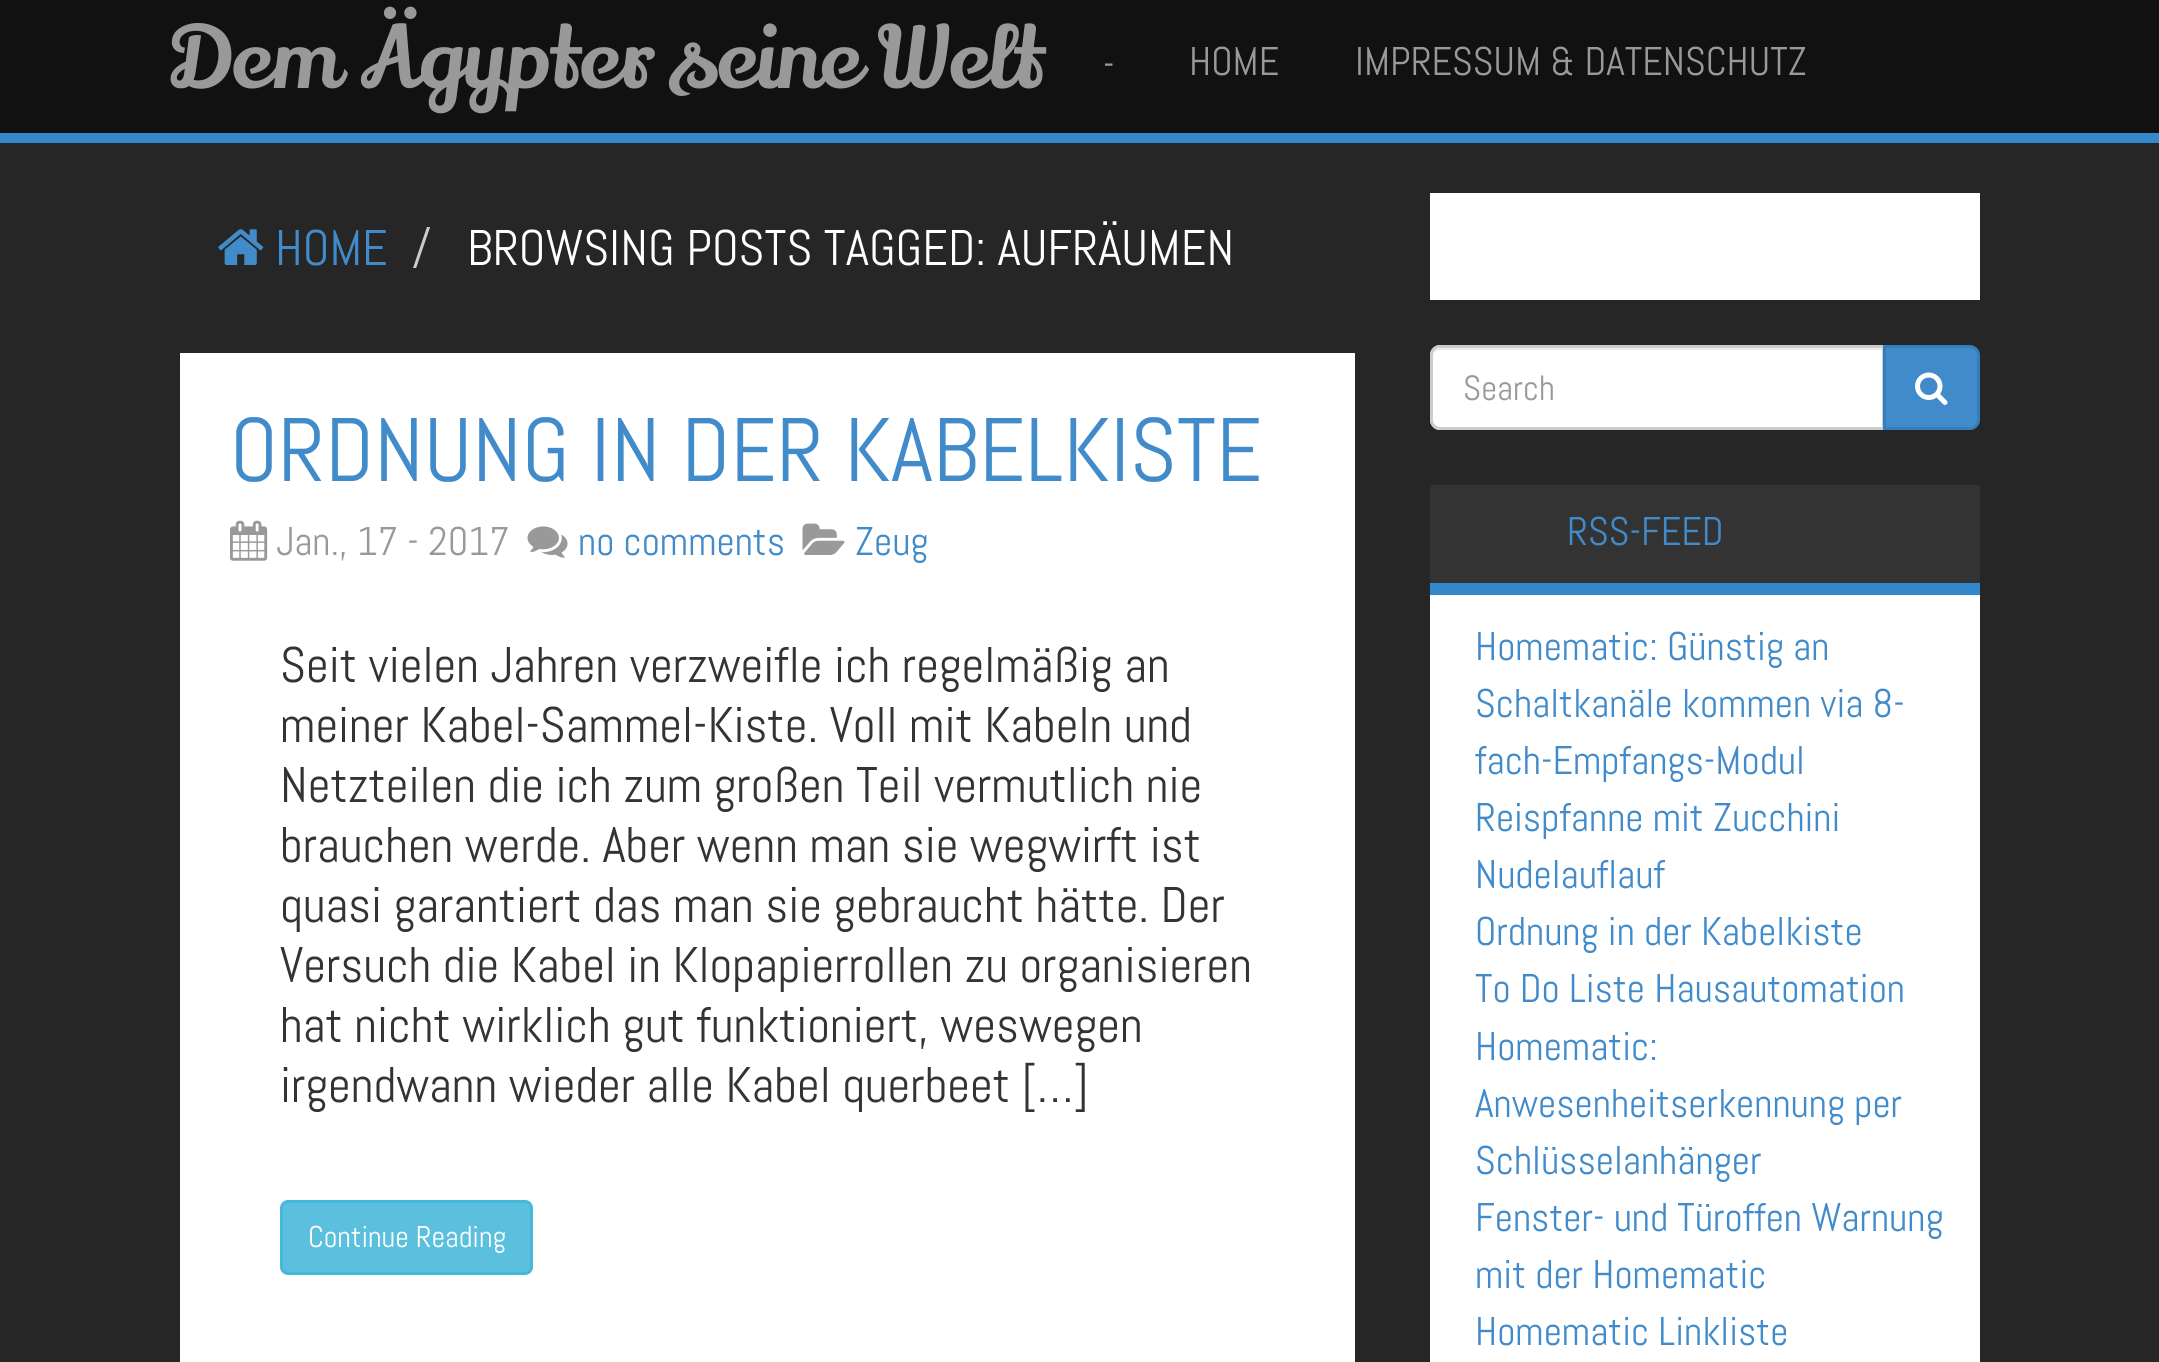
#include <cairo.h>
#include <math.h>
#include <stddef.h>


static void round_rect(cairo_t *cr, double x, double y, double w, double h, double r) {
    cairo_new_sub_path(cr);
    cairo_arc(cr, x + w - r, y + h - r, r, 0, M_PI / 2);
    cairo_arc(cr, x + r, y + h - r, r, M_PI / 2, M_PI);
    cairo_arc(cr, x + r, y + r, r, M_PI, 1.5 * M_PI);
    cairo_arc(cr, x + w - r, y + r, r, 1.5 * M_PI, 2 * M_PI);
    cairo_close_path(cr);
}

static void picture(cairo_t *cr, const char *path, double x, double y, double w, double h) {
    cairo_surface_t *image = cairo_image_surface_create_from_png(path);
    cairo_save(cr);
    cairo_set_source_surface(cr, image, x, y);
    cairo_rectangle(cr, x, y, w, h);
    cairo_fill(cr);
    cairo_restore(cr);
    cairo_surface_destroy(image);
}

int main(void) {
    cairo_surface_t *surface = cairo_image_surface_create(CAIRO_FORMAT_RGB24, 2159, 1362);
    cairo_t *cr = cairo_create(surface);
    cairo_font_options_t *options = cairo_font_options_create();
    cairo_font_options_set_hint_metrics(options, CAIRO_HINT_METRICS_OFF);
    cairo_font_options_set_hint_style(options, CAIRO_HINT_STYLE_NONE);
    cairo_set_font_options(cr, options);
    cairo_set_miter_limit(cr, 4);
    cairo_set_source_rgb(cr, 0.149, 0.149, 0.149);
    cairo_paint(cr);
    cairo_set_source_rgb(cr, 0.067, 0.067, 0.067);
    cairo_rectangle(cr, 0, 0, 2159, 133);
    cairo_fill(cr);
    cairo_set_source_rgb(cr, 0.2, 0.533, 0.8);
    cairo_rectangle(cr, 0, 133, 2159, 10);
    cairo_fill(cr);
    cairo_select_font_face(cr, "Lily Script One", CAIRO_FONT_SLANT_NORMAL, CAIRO_FONT_WEIGHT_NORMAL);
    cairo_set_font_size(cr, 85);
    cairo_set_source_rgb(cr, 0.6, 0.6, 0.6);
    cairo_move_to(cr, 168, 88);
    cairo_show_text(cr, "Dem Ägypter seine Welt");
    cairo_select_font_face(cr, "Abel", CAIRO_FONT_SLANT_NORMAL, CAIRO_FONT_WEIGHT_NORMAL);
    cairo_set_font_size(cr, 40);
    cairo_move_to(cr, 1103, 78);
    cairo_show_text(cr, "-");
    cairo_move_to(cr, 1189, 75);
    cairo_show_text(cr, "HOME");
    cairo_move_to(cr, 1355, 75);
    cairo_show_text(cr, "IMPRESSUM & DATENSCHUTZ");
    picture(cr, "img1.png", 218, 229, 46, 36);
    cairo_set_font_size(cr, 50);
    cairo_set_source_rgb(cr, 0.259, 0.545, 0.792);
    cairo_move_to(cr, 275, 265);
    cairo_show_text(cr, "HOME");
    cairo_set_source_rgb(cr, 0.8, 0.8, 0.8);
    cairo_move_to(cr, 412, 265);
    cairo_show_text(cr, "/");
    cairo_set_source_rgb(cr, 1, 1, 1);
    cairo_move_to(cr, 467, 265);
    cairo_show_text(cr, "BROWSING POSTS TAGGED: AUFRÄUMEN");
    cairo_rectangle(cr, 180, 353, 1175, 1009);
    cairo_fill(cr);
    cairo_set_font_size(cr, 90);
    cairo_set_source_rgb(cr, 0.259, 0.545, 0.792);
    cairo_move_to(cr, 230, 481);
    cairo_show_text(cr, "ORDNUNG IN DER KABELKISTE");
    picture(cr, "img2.png", 230, 520, 38, 41);
    cairo_set_font_size(cr, 40);
    cairo_set_source_rgb(cr, 0.6, 0.6, 0.6);
    cairo_move_to(cr, 276, 555);
    cairo_show_text(cr, "Jan., 17 - 2017");
    picture(cr, "img3.png", 527, 526, 41, 32);
    cairo_set_source_rgb(cr, 0.259, 0.545, 0.792);
    cairo_move_to(cr, 578, 555);
    cairo_show_text(cr, "no comments");
    picture(cr, "img4.png", 802, 523, 43, 32);
    cairo_move_to(cr, 855, 555);
    cairo_show_text(cr, "Zeug");
    cairo_set_font_size(cr, 50);
    cairo_set_source_rgb(cr, 0.2, 0.2, 0.2);
    cairo_move_to(cr, 280, 682);
    cairo_show_text(cr, "Seit vielen Jahren verzweifle ich regelmäßig an");
    cairo_move_to(cr, 280, 742);
    cairo_show_text(cr, "meiner Kabel-Sammel-Kiste. Voll mit Kabeln und");
    cairo_move_to(cr, 280, 802);
    cairo_show_text(cr, "Netzteilen die ich zum großen Teil vermutlich nie");
    cairo_move_to(cr, 280, 862);
    cairo_show_text(cr, "brauchen werde. Aber wenn man sie wegwirft ist");
    cairo_move_to(cr, 280, 922);
    cairo_show_text(cr, "quasi garantiert das man sie gebraucht hätte. Der");
    cairo_move_to(cr, 280, 982);
    cairo_show_text(cr, "Versuch die Kabel in Klopapierrollen zu organisieren");
    cairo_move_to(cr, 280, 1042);
    cairo_show_text(cr, "hat nicht wirklich gut funktioniert, weswegen");
    cairo_move_to(cr, 280, 1102);
    cairo_show_text(cr, "irgendwann wieder alle Kabel querbeet […]");
    cairo_set_source_rgb(cr, 0.357, 0.753, 0.871);
    round_rect(cr, 281.5, 1201.5, 250, 72, 6.5);
    cairo_fill_preserve(cr);
    cairo_set_source_rgb(cr, 0.275, 0.722, 0.855);
    cairo_set_line_width(cr, 3);
    cairo_stroke(cr);
    cairo_set_font_size(cr, 30);
    cairo_set_source_rgb(cr, 1, 1, 1);
    cairo_move_to(cr, 308, 1247);
    cairo_show_text(cr, "Continue Reading");
    cairo_rectangle(cr, 1430, 193, 550, 107);
    cairo_fill(cr);
    cairo_new_path(cr);
    cairo_move_to(cr, 1440, 345);
    cairo_line_to(cr, 1885, 345);
    cairo_line_to(cr, 1885, 430);
    cairo_line_to(cr, 1440, 430);
    cairo_curve_to(cr, 1434.5, 430, 1430, 425.5, 1430, 420);
    cairo_line_to(cr, 1430, 355);
    cairo_curve_to(cr, 1430, 349.5, 1434.5, 345, 1440, 345);
    cairo_close_path(cr);
    cairo_fill(cr);
    cairo_set_source_rgb(cr, 0.925, 0.925, 0.925);
    cairo_new_path(cr);
    cairo_move_to(cr, 1440, 350);
    cairo_line_to(cr, 1882, 350);
    cairo_line_to(cr, 1882, 428);
    cairo_line_to(cr, 1883, 428);
    cairo_line_to(cr, 1883, 348);
    cairo_line_to(cr, 1441, 348);
    cairo_curve_to(cr, 1438, 348, 1435, 350, 1433, 353);
    cairo_curve_to(cr, 1435, 351, 1438, 350, 1440, 350);
    cairo_close_path(cr);
    cairo_fill(cr);
    cairo_new_path(cr);
    cairo_move_to(cr, 1440, 346.5);
    cairo_line_to(cr, 1883.5, 346.5);
    cairo_line_to(cr, 1883.5, 428.5);
    cairo_line_to(cr, 1440, 428.5);
    cairo_curve_to(cr, 1435.5, 428.5, 1431.5, 424.5, 1431.5, 420);
    cairo_line_to(cr, 1431.5, 355);
    cairo_curve_to(cr, 1431.5, 350.5, 1435.5, 346.5, 1440, 346.5);
    cairo_close_path(cr);
    cairo_set_source_rgb(cr, 0.8, 0.8, 0.8);
    cairo_stroke(cr);
    cairo_set_font_size(cr, 35);
    cairo_set_source_rgb(cr, 0.6, 0.6, 0.6);
    cairo_move_to(cr, 1463, 400);
    cairo_show_text(cr, "Search");
    cairo_set_source_rgb(cr, 0.259, 0.545, 0.792);
    cairo_new_path(cr);
    cairo_move_to(cr, 1884.5, 346.5);
    cairo_line_to(cr, 1970, 346.5);
    cairo_curve_to(cr, 1974.5, 346.5, 1978.5, 350.5, 1978.5, 355);
    cairo_line_to(cr, 1978.5, 420);
    cairo_curve_to(cr, 1978.5, 424.5, 1974.5, 428.5, 1970, 428.5);
    cairo_line_to(cr, 1884.5, 428.5);
    cairo_close_path(cr);
    cairo_fill_preserve(cr);
    cairo_set_source_rgb(cr, 0.208, 0.494, 0.741);
    cairo_stroke(cr);
    picture(cr, "img5.png", 1915, 372, 33, 33);
    cairo_set_source_rgb(cr, 1, 1, 1);
    cairo_rectangle(cr, 1430, 595, 550, 767);
    cairo_fill(cr);
    cairo_set_source_rgb(cr, 0.2, 0.2, 0.2);
    cairo_rectangle(cr, 1430, 485, 550, 98);
    cairo_fill(cr);
    cairo_set_source_rgb(cr, 0.2, 0.533, 0.8);
    cairo_rectangle(cr, 1430, 583, 550, 12);
    cairo_fill(cr);
    cairo_set_font_size(cr, 40);
    cairo_set_source_rgb(cr, 0.259, 0.545, 0.792);
    cairo_move_to(cr, 1567, 545);
    cairo_show_text(cr, "RSS-FEED");
    cairo_move_to(cr, 1475, 660);
    cairo_show_text(cr, "Homematic: Günstig an");
    cairo_move_to(cr, 1475, 717);
    cairo_show_text(cr, "Schaltkanäle kommen via 8-");
    cairo_move_to(cr, 1475, 774);
    cairo_show_text(cr, "fach-Empfangs-Modul");
    cairo_move_to(cr, 1475, 831);
    cairo_show_text(cr, "Reispfanne mit Zucchini");
    cairo_move_to(cr, 1475, 888);
    cairo_show_text(cr, "Nudelauflauf");
    cairo_move_to(cr, 1475, 945);
    cairo_show_text(cr, "Ordnung in der Kabelkiste");
    cairo_move_to(cr, 1475, 1002);
    cairo_show_text(cr, "To Do Liste Hausautomation");
    cairo_move_to(cr, 1475, 1060);
    cairo_show_text(cr, "Homematic:");
    cairo_move_to(cr, 1475, 1117);
    cairo_show_text(cr, "Anwesenheitserkennung per");
    cairo_move_to(cr, 1475, 1174);
    cairo_show_text(cr, "Schlüsselanhänger");
    cairo_move_to(cr, 1475, 1231);
    cairo_show_text(cr, "Fenster- und Türoffen Warnung");
    cairo_move_to(cr, 1475, 1288);
    cairo_show_text(cr, "mit der Homematic");
    cairo_move_to(cr, 1475, 1345);
    cairo_show_text(cr, "Homematic Linkliste");
    cairo_surface_write_to_png(surface, "page.png");
    cairo_font_options_destroy(options);
    cairo_destroy(cr);
    cairo_surface_destroy(surface);
    return 0;
}
